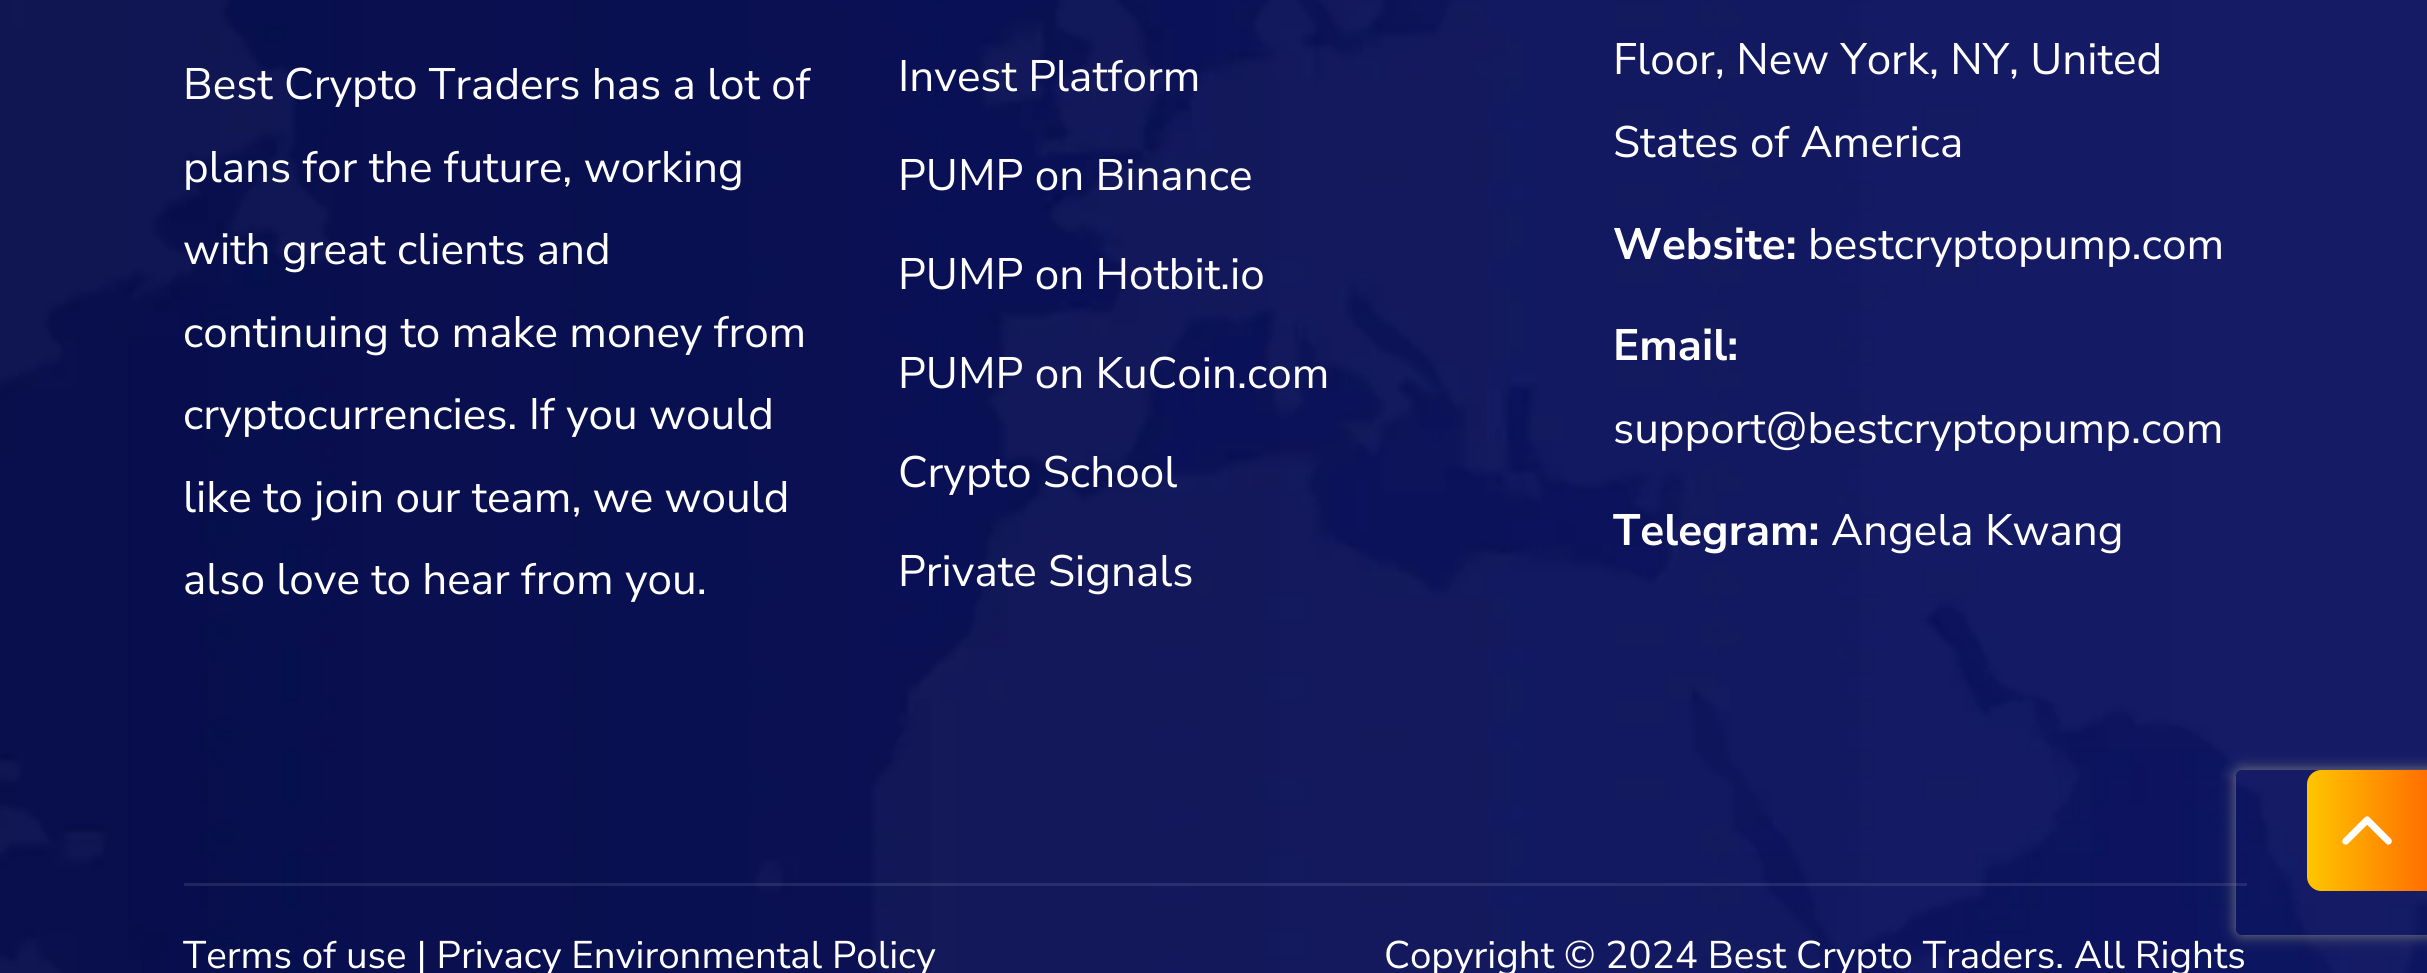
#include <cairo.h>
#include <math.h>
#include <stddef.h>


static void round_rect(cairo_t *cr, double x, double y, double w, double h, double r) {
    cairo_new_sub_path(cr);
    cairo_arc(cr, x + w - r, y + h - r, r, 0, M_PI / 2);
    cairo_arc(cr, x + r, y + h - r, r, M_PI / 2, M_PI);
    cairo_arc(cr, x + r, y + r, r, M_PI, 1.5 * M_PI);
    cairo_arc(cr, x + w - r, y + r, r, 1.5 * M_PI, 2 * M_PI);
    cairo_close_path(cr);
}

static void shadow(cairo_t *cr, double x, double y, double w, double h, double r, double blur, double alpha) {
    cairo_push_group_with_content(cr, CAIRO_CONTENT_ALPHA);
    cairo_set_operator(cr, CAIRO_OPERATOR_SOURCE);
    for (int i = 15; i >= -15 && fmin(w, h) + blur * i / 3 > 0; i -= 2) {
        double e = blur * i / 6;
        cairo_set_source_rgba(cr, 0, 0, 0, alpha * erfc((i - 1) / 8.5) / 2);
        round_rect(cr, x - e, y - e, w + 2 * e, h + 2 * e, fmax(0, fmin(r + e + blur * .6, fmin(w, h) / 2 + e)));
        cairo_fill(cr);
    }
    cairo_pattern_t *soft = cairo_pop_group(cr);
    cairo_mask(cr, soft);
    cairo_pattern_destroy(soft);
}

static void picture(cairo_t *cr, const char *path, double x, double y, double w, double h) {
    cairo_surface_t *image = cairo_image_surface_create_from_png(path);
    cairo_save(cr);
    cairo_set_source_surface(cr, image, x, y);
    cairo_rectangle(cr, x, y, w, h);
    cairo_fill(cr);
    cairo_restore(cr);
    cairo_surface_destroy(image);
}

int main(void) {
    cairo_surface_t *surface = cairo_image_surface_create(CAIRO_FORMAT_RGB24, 2427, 973);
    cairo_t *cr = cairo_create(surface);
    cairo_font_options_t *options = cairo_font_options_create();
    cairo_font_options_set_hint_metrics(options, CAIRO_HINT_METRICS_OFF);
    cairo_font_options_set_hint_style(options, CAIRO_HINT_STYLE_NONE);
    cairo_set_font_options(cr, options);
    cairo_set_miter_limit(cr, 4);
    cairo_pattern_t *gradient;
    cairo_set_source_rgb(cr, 1, 1, 1);
    cairo_paint(cr);
    picture(cr, "img1.png", 0, 0, 2427, 973);
    cairo_select_font_face(cr, "Nunito Sans", CAIRO_FONT_SLANT_NORMAL, CAIRO_FONT_WEIGHT_NORMAL);
    cairo_set_font_size(cr, 44);
    cairo_set_source_rgb(cr, 1, 1, 1);
    cairo_move_to(cr, 183, 99);
    cairo_show_text(cr, "Best Crypto Traders has a lot of");
    cairo_move_to(cr, 183, 182);
    cairo_show_text(cr, "plans for the future, working");
    cairo_move_to(cr, 183, 264);
    cairo_show_text(cr, "with great clients and");
    cairo_move_to(cr, 183, 347);
    cairo_show_text(cr, "continuing to make money from");
    cairo_move_to(cr, 183, 429);
    cairo_show_text(cr, "cryptocurrencies. If you would");
    cairo_move_to(cr, 183, 512);
    cairo_show_text(cr, "like to join our team, we would");
    cairo_move_to(cr, 183, 594);
    cairo_show_text(cr, "also love to hear from you.");
    cairo_move_to(cr, 898, 91);
    cairo_show_text(cr, "Invest Platform");
    cairo_move_to(cr, 898, 190);
    cairo_show_text(cr, "PUMP on Binance");
    cairo_move_to(cr, 898, 289);
    cairo_show_text(cr, "PUMP on Hotbit.io");
    cairo_move_to(cr, 898, 388);
    cairo_show_text(cr, "PUMP on KuCoin.com");
    cairo_move_to(cr, 898, 487);
    cairo_show_text(cr, "Crypto School");
    cairo_move_to(cr, 898, 586);
    cairo_show_text(cr, "Private Signals");
    cairo_move_to(cr, 1613, 74);
    cairo_show_text(cr, "Floor, New York, NY, United");
    cairo_move_to(cr, 1613, 157);
    cairo_show_text(cr, "States of America");
    cairo_select_font_face(cr, "Nunito Sans", CAIRO_FONT_SLANT_NORMAL, CAIRO_FONT_WEIGHT_BOLD);
    cairo_move_to(cr, 1613, 259);
    cairo_show_text(cr, "Website:");
    cairo_select_font_face(cr, "Nunito Sans", CAIRO_FONT_SLANT_NORMAL, CAIRO_FONT_WEIGHT_NORMAL);
    cairo_move_to(cr, 1808, 259);
    cairo_show_text(cr, "bestcryptopump.com");
    cairo_select_font_face(cr, "Nunito Sans", CAIRO_FONT_SLANT_NORMAL, CAIRO_FONT_WEIGHT_BOLD);
    cairo_move_to(cr, 1613, 360);
    cairo_show_text(cr, "Email:");
    cairo_select_font_face(cr, "Nunito Sans", CAIRO_FONT_SLANT_NORMAL, CAIRO_FONT_WEIGHT_NORMAL);
    cairo_move_to(cr, 1613, 443);
    cairo_show_text(cr, "support@bestcryptopump.com");
    cairo_select_font_face(cr, "Nunito Sans", CAIRO_FONT_SLANT_NORMAL, CAIRO_FONT_WEIGHT_BOLD);
    cairo_move_to(cr, 1613, 545);
    cairo_show_text(cr, "Telegram:");
    cairo_select_font_face(cr, "Nunito Sans", CAIRO_FONT_SLANT_NORMAL, CAIRO_FONT_WEIGHT_NORMAL);
    cairo_move_to(cr, 1831, 545);
    cairo_show_text(cr, "Angela Kwang");
    cairo_set_source_rgba(cr, 1, 1, 1, 0.1);
    cairo_rectangle(cr, 184, 883, 2063, 3);
    cairo_fill(cr);
    cairo_set_font_size(cr, 38.5);
    cairo_set_source_rgb(cr, 1, 1, 1);
    cairo_move_to(cr, 183, 968);
    cairo_show_text(cr, "Terms of use | Privacy Environmental Policy");
    cairo_move_to(cr, 1384, 968);
    cairo_show_text(cr, "Copyright © 2024 Best Crypto Traders. All Rights");
    cairo_save(cr);
    cairo_set_fill_rule(cr, CAIRO_FILL_RULE_EVEN_ODD);
    cairo_new_path(cr);
    cairo_move_to(cr, 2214, 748);
    cairo_line_to(cr, 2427, 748);
    cairo_line_to(cr, 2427, 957);
    cairo_line_to(cr, 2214, 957);
    cairo_close_path(cr);
    cairo_move_to(cr, 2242, 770);
    cairo_line_to(cr, 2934, 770);
    cairo_curve_to(cr, 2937.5, 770, 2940, 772.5, 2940, 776);
    cairo_line_to(cr, 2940, 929);
    cairo_curve_to(cr, 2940, 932.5, 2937.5, 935, 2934, 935);
    cairo_line_to(cr, 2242, 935);
    cairo_curve_to(cr, 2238.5, 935, 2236, 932.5, 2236, 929);
    cairo_line_to(cr, 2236, 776);
    cairo_curve_to(cr, 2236, 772.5, 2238.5, 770, 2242, 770);
    cairo_close_path(cr);
    cairo_clip(cr);
    cairo_set_source_rgb(cr, 0.502, 0.502, 0.502);
    shadow(cr, 2236, 770, 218, 165, 6, 7, 1);
    cairo_restore(cr);
    gradient = cairo_pattern_create_linear(2307, 831, 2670, 831);
    cairo_pattern_add_color_stop_rgba(gradient, 0, 1, 0.776, 0, 1);
    cairo_pattern_add_color_stop_rgba(gradient, 0.5, 1, 0.259, 0, 1);
    cairo_pattern_add_color_stop_rgba(gradient, 1, 1, 0.776, 0, 1);
    cairo_set_source(cr, gradient);
    cairo_pattern_destroy(gradient);
    cairo_new_path(cr);
    cairo_move_to(cr, 2321, 770);
    cairo_line_to(cr, 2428, 770);
    cairo_line_to(cr, 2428, 891);
    cairo_line_to(cr, 2321, 891);
    cairo_curve_to(cr, 2313.5, 891, 2307, 884.5, 2307, 877);
    cairo_line_to(cr, 2307, 784);
    cairo_curve_to(cr, 2307, 776.5, 2313.5, 770, 2321, 770);
    cairo_close_path(cr);
    cairo_fill(cr);
    picture(cr, "img2.png", 2342, 816, 50, 29);
    cairo_surface_write_to_png(surface, "page.png");
    cairo_font_options_destroy(options);
    cairo_destroy(cr);
    cairo_surface_destroy(surface);
    return 0;
}
